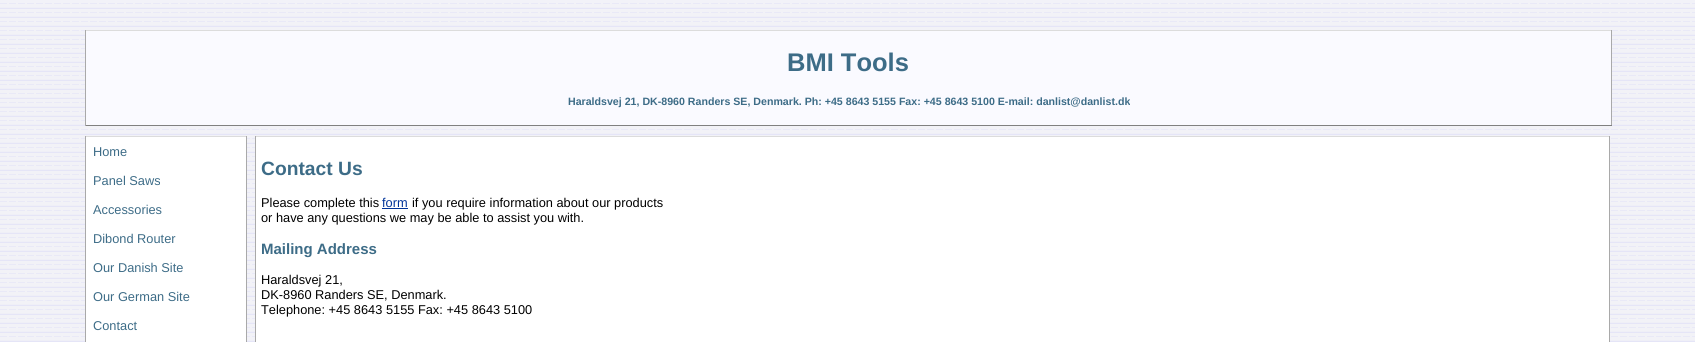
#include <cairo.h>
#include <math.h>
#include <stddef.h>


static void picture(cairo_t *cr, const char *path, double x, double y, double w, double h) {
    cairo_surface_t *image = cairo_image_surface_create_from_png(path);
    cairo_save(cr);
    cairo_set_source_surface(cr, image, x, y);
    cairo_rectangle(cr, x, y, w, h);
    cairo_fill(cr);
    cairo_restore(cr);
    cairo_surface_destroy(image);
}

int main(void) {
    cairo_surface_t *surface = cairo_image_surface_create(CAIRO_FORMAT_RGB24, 1695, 342);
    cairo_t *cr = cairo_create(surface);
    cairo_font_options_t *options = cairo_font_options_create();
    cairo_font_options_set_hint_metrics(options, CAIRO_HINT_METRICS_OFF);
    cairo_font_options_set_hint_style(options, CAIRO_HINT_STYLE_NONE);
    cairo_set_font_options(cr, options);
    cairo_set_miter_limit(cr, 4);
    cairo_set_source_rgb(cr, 0.949, 0.949, 0.969);
    cairo_paint(cr);
    picture(cr, "img1.png", 0, 3, 1695, 339);
    cairo_set_source_rgb(cr, 0.98, 0.98, 1);
    cairo_rectangle(cr, 86, 31, 1525, 94);
    cairo_fill(cr);
    cairo_set_source_rgb(cr, 0.863, 0.863, 0.863);
    cairo_rectangle(cr, 85, 30, 1527, 1);
    cairo_fill(cr);
    cairo_set_source_rgb(cr, 0.663, 0.663, 0.663);
    cairo_rectangle(cr, 1611, 30, 1, 96);
    cairo_fill(cr);
    cairo_set_source_rgb(cr, 0.502, 0.502, 0.502);
    cairo_rectangle(cr, 85, 125, 1527, 1);
    cairo_fill(cr);
    cairo_set_source_rgb(cr, 0.663, 0.663, 0.663);
    cairo_rectangle(cr, 85, 30, 1, 96);
    cairo_fill(cr);
    cairo_select_font_face(cr, "Liberation Sans", CAIRO_FONT_SLANT_NORMAL, CAIRO_FONT_WEIGHT_BOLD);
    cairo_set_font_size(cr, 25.5);
    cairo_set_source_rgb(cr, 0.239, 0.424, 0.529);
    cairo_move_to(cr, 787, 71);
    cairo_show_text(cr, "BMI Tools");
    cairo_set_font_size(cr, 10.62);
    cairo_move_to(cr, 568, 105);
    cairo_show_text(cr, "Haraldsvej 21, DK-8960 Randers SE, Denmark. Ph: +45 8643 5155 Fax: +45 8643 5100 E-mail: danlist@danlist.dk");
    cairo_set_source_rgb(cr, 1, 1, 1);
    cairo_rectangle(cr, 86, 137, 160, 205);
    cairo_fill(cr);
    cairo_set_source_rgb(cr, 0.863, 0.863, 0.863);
    cairo_rectangle(cr, 85, 136, 162, 1);
    cairo_fill(cr);
    cairo_set_source_rgb(cr, 0.663, 0.663, 0.663);
    cairo_rectangle(cr, 246, 136, 1, 206);
    cairo_fill(cr);
    cairo_rectangle(cr, 85, 136, 1, 206);
    cairo_fill(cr);
    cairo_select_font_face(cr, "Liberation Sans", CAIRO_FONT_SLANT_NORMAL, CAIRO_FONT_WEIGHT_NORMAL);
    cairo_set_font_size(cr, 12.8);
    cairo_set_source_rgb(cr, 0.239, 0.424, 0.529);
    cairo_move_to(cr, 93, 156);
    cairo_show_text(cr, "Home");
    cairo_move_to(cr, 93, 185);
    cairo_show_text(cr, "Panel Saws");
    cairo_move_to(cr, 93, 214);
    cairo_show_text(cr, "Accessories");
    cairo_move_to(cr, 93, 243);
    cairo_show_text(cr, "Dibond Router");
    cairo_move_to(cr, 93, 272);
    cairo_show_text(cr, "Our Danish Site");
    cairo_move_to(cr, 93, 301);
    cairo_show_text(cr, "Our German Site");
    cairo_move_to(cr, 93, 330);
    cairo_show_text(cr, "Contact");
    cairo_set_source_rgb(cr, 1, 1, 1);
    cairo_rectangle(cr, 256, 137, 1353, 205);
    cairo_fill(cr);
    cairo_set_source_rgb(cr, 0.863, 0.863, 0.863);
    cairo_rectangle(cr, 255, 136, 1355, 1);
    cairo_fill(cr);
    cairo_set_source_rgb(cr, 0.663, 0.663, 0.663);
    cairo_rectangle(cr, 1609, 136, 1, 206);
    cairo_fill(cr);
    cairo_rectangle(cr, 255, 136, 1, 206);
    cairo_fill(cr);
    cairo_select_font_face(cr, "Liberation Sans", CAIRO_FONT_SLANT_NORMAL, CAIRO_FONT_WEIGHT_BOLD);
    cairo_set_font_size(cr, 19.25);
    cairo_set_source_rgb(cr, 0.239, 0.424, 0.529);
    cairo_move_to(cr, 261, 175);
    cairo_show_text(cr, "Contact Us");
    cairo_select_font_face(cr, "Liberation Sans", CAIRO_FONT_SLANT_NORMAL, CAIRO_FONT_WEIGHT_NORMAL);
    cairo_set_font_size(cr, 12.8);
    cairo_set_source_rgb(cr, 0, 0, 0);
    cairo_move_to(cr, 261, 207);
    cairo_show_text(cr, "Please complete this");
    cairo_set_source_rgb(cr, 0, 0.2, 0.6);
    cairo_move_to(cr, 382, 207);
    cairo_show_text(cr, "form");
    cairo_rectangle(cr, 382, 208, 26, 1);
    cairo_fill(cr);
    cairo_set_source_rgb(cr, 0, 0, 0);
    cairo_move_to(cr, 412, 207);
    cairo_show_text(cr, "if you require information about our products");
    cairo_move_to(cr, 261, 222);
    cairo_show_text(cr, "or have any questions we may be able to assist you with.");
    cairo_select_font_face(cr, "Liberation Sans", CAIRO_FONT_SLANT_NORMAL, CAIRO_FONT_WEIGHT_BOLD);
    cairo_set_font_size(cr, 15);
    cairo_set_source_rgb(cr, 0.239, 0.424, 0.529);
    cairo_move_to(cr, 261, 254);
    cairo_show_text(cr, "Mailing Address");
    cairo_select_font_face(cr, "Liberation Sans", CAIRO_FONT_SLANT_NORMAL, CAIRO_FONT_WEIGHT_NORMAL);
    cairo_set_font_size(cr, 12.8);
    cairo_set_source_rgb(cr, 0, 0, 0);
    cairo_move_to(cr, 261, 284);
    cairo_show_text(cr, "Haraldsvej 21,");
    cairo_move_to(cr, 261, 299);
    cairo_show_text(cr, "DK-8960 Randers SE, Denmark.");
    cairo_move_to(cr, 261, 314);
    cairo_show_text(cr, "Telephone: +45 8643 5155 Fax: +45 8643 5100");
    cairo_surface_write_to_png(surface, "page.png");
    cairo_font_options_destroy(options);
    cairo_destroy(cr);
    cairo_surface_destroy(surface);
    return 0;
}
